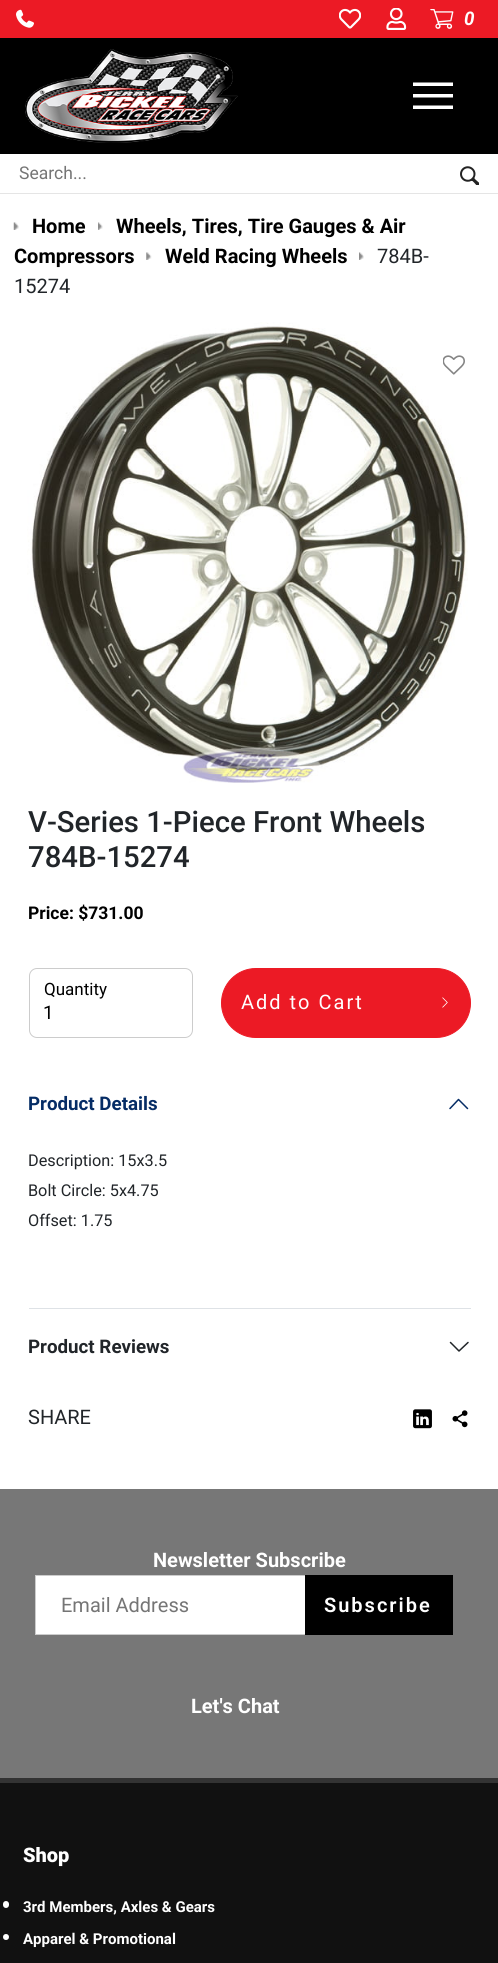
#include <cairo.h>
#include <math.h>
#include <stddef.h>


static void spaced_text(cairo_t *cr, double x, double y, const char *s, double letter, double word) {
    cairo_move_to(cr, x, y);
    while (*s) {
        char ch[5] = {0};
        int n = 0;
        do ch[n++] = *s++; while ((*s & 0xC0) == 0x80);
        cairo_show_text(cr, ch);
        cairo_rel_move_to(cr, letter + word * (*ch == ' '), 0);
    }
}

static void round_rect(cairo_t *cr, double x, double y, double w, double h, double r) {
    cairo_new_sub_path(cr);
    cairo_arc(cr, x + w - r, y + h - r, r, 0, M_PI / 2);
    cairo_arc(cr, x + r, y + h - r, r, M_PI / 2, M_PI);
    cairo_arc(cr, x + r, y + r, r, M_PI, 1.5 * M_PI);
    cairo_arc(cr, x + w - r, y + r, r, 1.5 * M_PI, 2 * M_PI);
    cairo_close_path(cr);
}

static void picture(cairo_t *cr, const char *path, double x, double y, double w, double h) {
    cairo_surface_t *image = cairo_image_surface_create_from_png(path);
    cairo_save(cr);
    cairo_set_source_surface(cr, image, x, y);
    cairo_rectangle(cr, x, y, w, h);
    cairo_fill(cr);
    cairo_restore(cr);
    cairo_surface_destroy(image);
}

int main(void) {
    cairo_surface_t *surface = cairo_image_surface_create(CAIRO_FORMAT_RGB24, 498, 1963);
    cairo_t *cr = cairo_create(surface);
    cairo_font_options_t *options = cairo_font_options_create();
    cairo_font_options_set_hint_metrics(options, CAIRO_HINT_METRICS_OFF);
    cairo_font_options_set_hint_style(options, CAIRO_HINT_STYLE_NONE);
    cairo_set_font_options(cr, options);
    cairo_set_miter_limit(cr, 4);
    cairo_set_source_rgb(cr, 1, 1, 1);
    cairo_paint(cr);
    cairo_set_source_rgb(cr, 0, 0, 0);
    cairo_rectangle(cr, 0, 38, 498, 116);
    cairo_fill(cr);
    cairo_set_source_rgb(cr, 0.925, 0.102, 0.145);
    cairo_rectangle(cr, 0, 0, 498, 38);
    cairo_fill(cr);
    picture(cr, "img1.png", 16, 9, 18, 19);
    picture(cr, "img2.png", 339, 8, 22, 21);
    picture(cr, "img3.png", 386, 8, 21, 22);
    picture(cr, "img4.png", 430, 9, 24, 20);
    cairo_select_font_face(cr, "Roboto", CAIRO_FONT_SLANT_ITALIC, CAIRO_FONT_WEIGHT_BOLD);
    cairo_set_font_size(cr, 18.75);
    cairo_set_source_rgb(cr, 1, 1, 1);
    spaced_text(cr, 464, 25, "0", 1, 0);
    picture(cr, "img5.png", 25, 49, 213, 94);
    cairo_new_path(cr);
    cairo_move_to(cr, 413, 109);
    cairo_line_to(cr, 413, 105.5);
    cairo_line_to(cr, 453, 105.5);
    cairo_line_to(cr, 453, 109);
    cairo_close_path(cr);
    cairo_move_to(cr, 413, 97.5);
    cairo_line_to(cr, 413, 94);
    cairo_line_to(cr, 453, 94);
    cairo_line_to(cr, 453, 97.5);
    cairo_close_path(cr);
    cairo_move_to(cr, 413, 86);
    cairo_line_to(cr, 413, 82.5);
    cairo_line_to(cr, 453, 82.5);
    cairo_line_to(cr, 453, 86);
    cairo_close_path(cr);
    cairo_fill(cr);
    cairo_set_source_rgb(cr, 0.898, 0.898, 0.898);
    cairo_rectangle(cr, 0, 193, 498, 1);
    cairo_fill(cr);
    cairo_select_font_face(cr, "Roboto", CAIRO_FONT_SLANT_NORMAL, CAIRO_FONT_WEIGHT_NORMAL);
    cairo_set_font_size(cr, 17.5);
    cairo_set_source_rgb(cr, 0.459, 0.459, 0.459);
    cairo_move_to(cr, 19, 179);
    cairo_show_text(cr, "Search...");
    picture(cr, "img6.png", 460, 166, 19, 19);
    picture(cr, "img7.png", 13, 222, 6, 8);
    cairo_select_font_face(cr, "Roboto", CAIRO_FONT_SLANT_NORMAL, CAIRO_FONT_WEIGHT_BOLD);
    cairo_set_font_size(cr, 20);
    cairo_set_source_rgb(cr, 0, 0, 0);
    cairo_move_to(cr, 32, 233);
    cairo_show_text(cr, "Home");
    picture(cr, "img8.png", 98, 222, 5, 8);
    cairo_move_to(cr, 116, 233);
    cairo_show_text(cr, "Wheels, Tires, Tire Gauges & Air");
    cairo_move_to(cr, 14, 263);
    cairo_show_text(cr, "Compressors");
    picture(cr, "img9.png", 146, 252, 6, 8);
    cairo_move_to(cr, 165, 263);
    cairo_show_text(cr, "Weld Racing Wheels");
    picture(cr, "img10.png", 359, 252, 5, 8);
    cairo_select_font_face(cr, "Roboto", CAIRO_FONT_SLANT_NORMAL, CAIRO_FONT_WEIGHT_NORMAL);
    cairo_set_source_rgb(cr, 0.129, 0.145, 0.161);
    cairo_move_to(cr, 377, 263);
    cairo_show_text(cr, "784B-");
    cairo_move_to(cr, 14, 293);
    cairo_show_text(cr, "15274");
    picture(cr, "img11.png", 27, 322, 441, 461);
    picture(cr, "img12.png", 443, 355, 22, 20);
    cairo_select_font_face(cr, "Roboto Medium", CAIRO_FONT_SLANT_NORMAL, CAIRO_FONT_WEIGHT_NORMAL);
    cairo_set_font_size(cr, 29.3);
    cairo_move_to(cr, 28, 832);
    cairo_show_text(cr, "V-Series 1-Piece Front Wheels");
    cairo_move_to(cr, 28, 867);
    cairo_show_text(cr, "784B-15274");
    cairo_select_font_face(cr, "Roboto", CAIRO_FONT_SLANT_NORMAL, CAIRO_FONT_WEIGHT_BOLD);
    cairo_set_font_size(cr, 17.5);
    cairo_set_source_rgb(cr, 0, 0, 0);
    cairo_move_to(cr, 28, 919);
    cairo_show_text(cr, "Price: $731.00");
    round_rect(cr, 29.5, 968.5, 163, 69, 7.5);
    cairo_set_source_rgb(cr, 0.8, 0.8, 0.8);
    cairo_set_line_width(cr, 1);
    cairo_stroke(cr);
    cairo_select_font_face(cr, "Roboto", CAIRO_FONT_SLANT_NORMAL, CAIRO_FONT_WEIGHT_NORMAL);
    cairo_set_font_size(cr, 17);
    cairo_set_source_rgb(cr, 0, 0, 0);
    cairo_move_to(cr, 44, 995);
    cairo_show_text(cr, "Quantity");
    cairo_set_font_size(cr, 18.75);
    cairo_move_to(cr, 43, 1019);
    cairo_show_text(cr, "1");
    cairo_set_source_rgb(cr, 0.925, 0.102, 0.145);
    round_rect(cr, 221.5, 968.5, 249, 69, 34.5);
    cairo_fill_preserve(cr);
    cairo_stroke(cr);
    cairo_set_font_size(cr, 20);
    cairo_set_source_rgb(cr, 1, 1, 1);
    spaced_text(cr, 241, 1009, "Add to Cart", 2, 0);
    picture(cr, "img13.png", 442, 997, 6, 11);
    cairo_set_source_rgb(cr, 0.871, 0.886, 0.902);
    cairo_rectangle(cr, 29, 1308, 442, 1);
    cairo_fill(cr);
    cairo_select_font_face(cr, "Roboto", CAIRO_FONT_SLANT_NORMAL, CAIRO_FONT_WEIGHT_BOLD);
    cairo_set_font_size(cr, 18.75);
    cairo_set_source_rgb(cr, 0.02, 0.173, 0.396);
    cairo_move_to(cr, 28, 1110);
    cairo_show_text(cr, "Product Details");
    cairo_new_path(cr);
    cairo_move_to(cr, 467.5, 1108.5);
    cairo_line_to(cr, 458.5, 1099.5);
    cairo_line_to(cr, 450, 1108.5);
    cairo_set_line_width(cr, 1.5);
    cairo_set_line_cap(cr, CAIRO_LINE_CAP_ROUND);
    cairo_set_line_join(cr, CAIRO_LINE_JOIN_ROUND);
    cairo_stroke(cr);
    cairo_select_font_face(cr, "Roboto", CAIRO_FONT_SLANT_NORMAL, CAIRO_FONT_WEIGHT_NORMAL);
    cairo_set_font_size(cr, 16.25);
    cairo_set_source_rgb(cr, 0.129, 0.145, 0.161);
    cairo_move_to(cr, 28, 1166);
    cairo_show_text(cr, "Description: 15x3.5");
    cairo_move_to(cr, 28, 1196);
    cairo_show_text(cr, "Bolt Circle: 5x4.75");
    cairo_move_to(cr, 28, 1226);
    cairo_show_text(cr, "Offset: 1.75");
    cairo_select_font_face(cr, "Roboto", CAIRO_FONT_SLANT_NORMAL, CAIRO_FONT_WEIGHT_BOLD);
    cairo_set_font_size(cr, 18.75);
    cairo_move_to(cr, 28, 1353);
    cairo_show_text(cr, "Product Reviews");
    cairo_new_path(cr);
    cairo_move_to(cr, 450.5, 1342.5);
    cairo_line_to(cr, 459, 1351);
    cairo_line_to(cr, 468, 1342.5);
    cairo_stroke(cr);
    cairo_select_font_face(cr, "Roboto", CAIRO_FONT_SLANT_NORMAL, CAIRO_FONT_WEIGHT_NORMAL);
    cairo_set_font_size(cr, 20);
    cairo_move_to(cr, 28, 1424);
    cairo_show_text(cr, "SHARE");
    picture(cr, "img14.png", 413, 1409, 19, 20);
    picture(cr, "img15.png", 452, 1410, 16, 18);
    cairo_set_source_rgb(cr, 0.467, 0.467, 0.467);
    cairo_rectangle(cr, 0, 1489, 498, 289);
    cairo_fill(cr);
    cairo_select_font_face(cr, "Roboto", CAIRO_FONT_SLANT_NORMAL, CAIRO_FONT_WEIGHT_BOLD);
    cairo_set_source_rgb(cr, 1, 1, 1);
    cairo_move_to(cr, 153, 1567);
    cairo_show_text(cr, "Newsletter Subscribe");
    cairo_rectangle(cr, 36, 1576, 269, 58);
    cairo_fill(cr);
    cairo_rectangle(cr, 35.5, 1575.5, 280, 59);
    cairo_set_source_rgb(cr, 0.8, 0.8, 0.8);
    cairo_set_line_width(cr, 1);
    cairo_set_line_cap(cr, CAIRO_LINE_CAP_BUTT);
    cairo_set_line_join(cr, CAIRO_LINE_JOIN_MITER);
    cairo_stroke(cr);
    cairo_select_font_face(cr, "Roboto", CAIRO_FONT_SLANT_NORMAL, CAIRO_FONT_WEIGHT_NORMAL);
    cairo_set_source_rgb(cr, 0.459, 0.459, 0.459);
    cairo_move_to(cr, 61, 1612);
    cairo_show_text(cr, "Email Address");
    cairo_set_source_rgb(cr, 0, 0, 0);
    cairo_rectangle(cr, 305, 1575, 148, 60);
    cairo_fill(cr);
    cairo_select_font_face(cr, "Roboto SemiBold", CAIRO_FONT_SLANT_NORMAL, CAIRO_FONT_WEIGHT_NORMAL);
    cairo_set_source_rgb(cr, 1, 1, 1);
    spaced_text(cr, 324, 1612, "Subscribe", 2, 0);
    cairo_select_font_face(cr, "Roboto", CAIRO_FONT_SLANT_NORMAL, CAIRO_FONT_WEIGHT_BOLD);
    cairo_move_to(cr, 191, 1713);
    cairo_show_text(cr, "Let's Chat");
    cairo_set_source_rgb(cr, 0.067, 0.067, 0.067);
    cairo_rectangle(cr, 0, 1783, 498, 180);
    cairo_fill(cr);
    cairo_set_source_rgb(cr, 0.2, 0.2, 0.2);
    cairo_rectangle(cr, 0, 1778, 498, 5);
    cairo_fill(cr);
    cairo_select_font_face(cr, "Roboto Black", CAIRO_FONT_SLANT_NORMAL, CAIRO_FONT_WEIGHT_NORMAL);
    cairo_set_source_rgb(cr, 1, 1, 1);
    cairo_move_to(cr, 23, 1862);
    cairo_show_text(cr, "Shop");
    round_rect(cr, 3, 1901, 6, 7, 3);
    cairo_fill(cr);
    cairo_select_font_face(cr, "Roboto", CAIRO_FONT_SLANT_NORMAL, CAIRO_FONT_WEIGHT_BOLD);
    cairo_set_font_size(cr, 15);
    cairo_move_to(cr, 23, 1912);
    cairo_show_text(cr, "3rd Members, Axles & Gears");
    cairo_new_path(cr);
    cairo_arc(cr, 6, 1937, 3, 0, 2 * M_PI);
    cairo_fill(cr);
    cairo_move_to(cr, 23, 1944);
    cairo_show_text(cr, "Apparel & Promotional");
    cairo_surface_write_to_png(surface, "page.png");
    cairo_font_options_destroy(options);
    cairo_destroy(cr);
    cairo_surface_destroy(surface);
    return 0;
}
